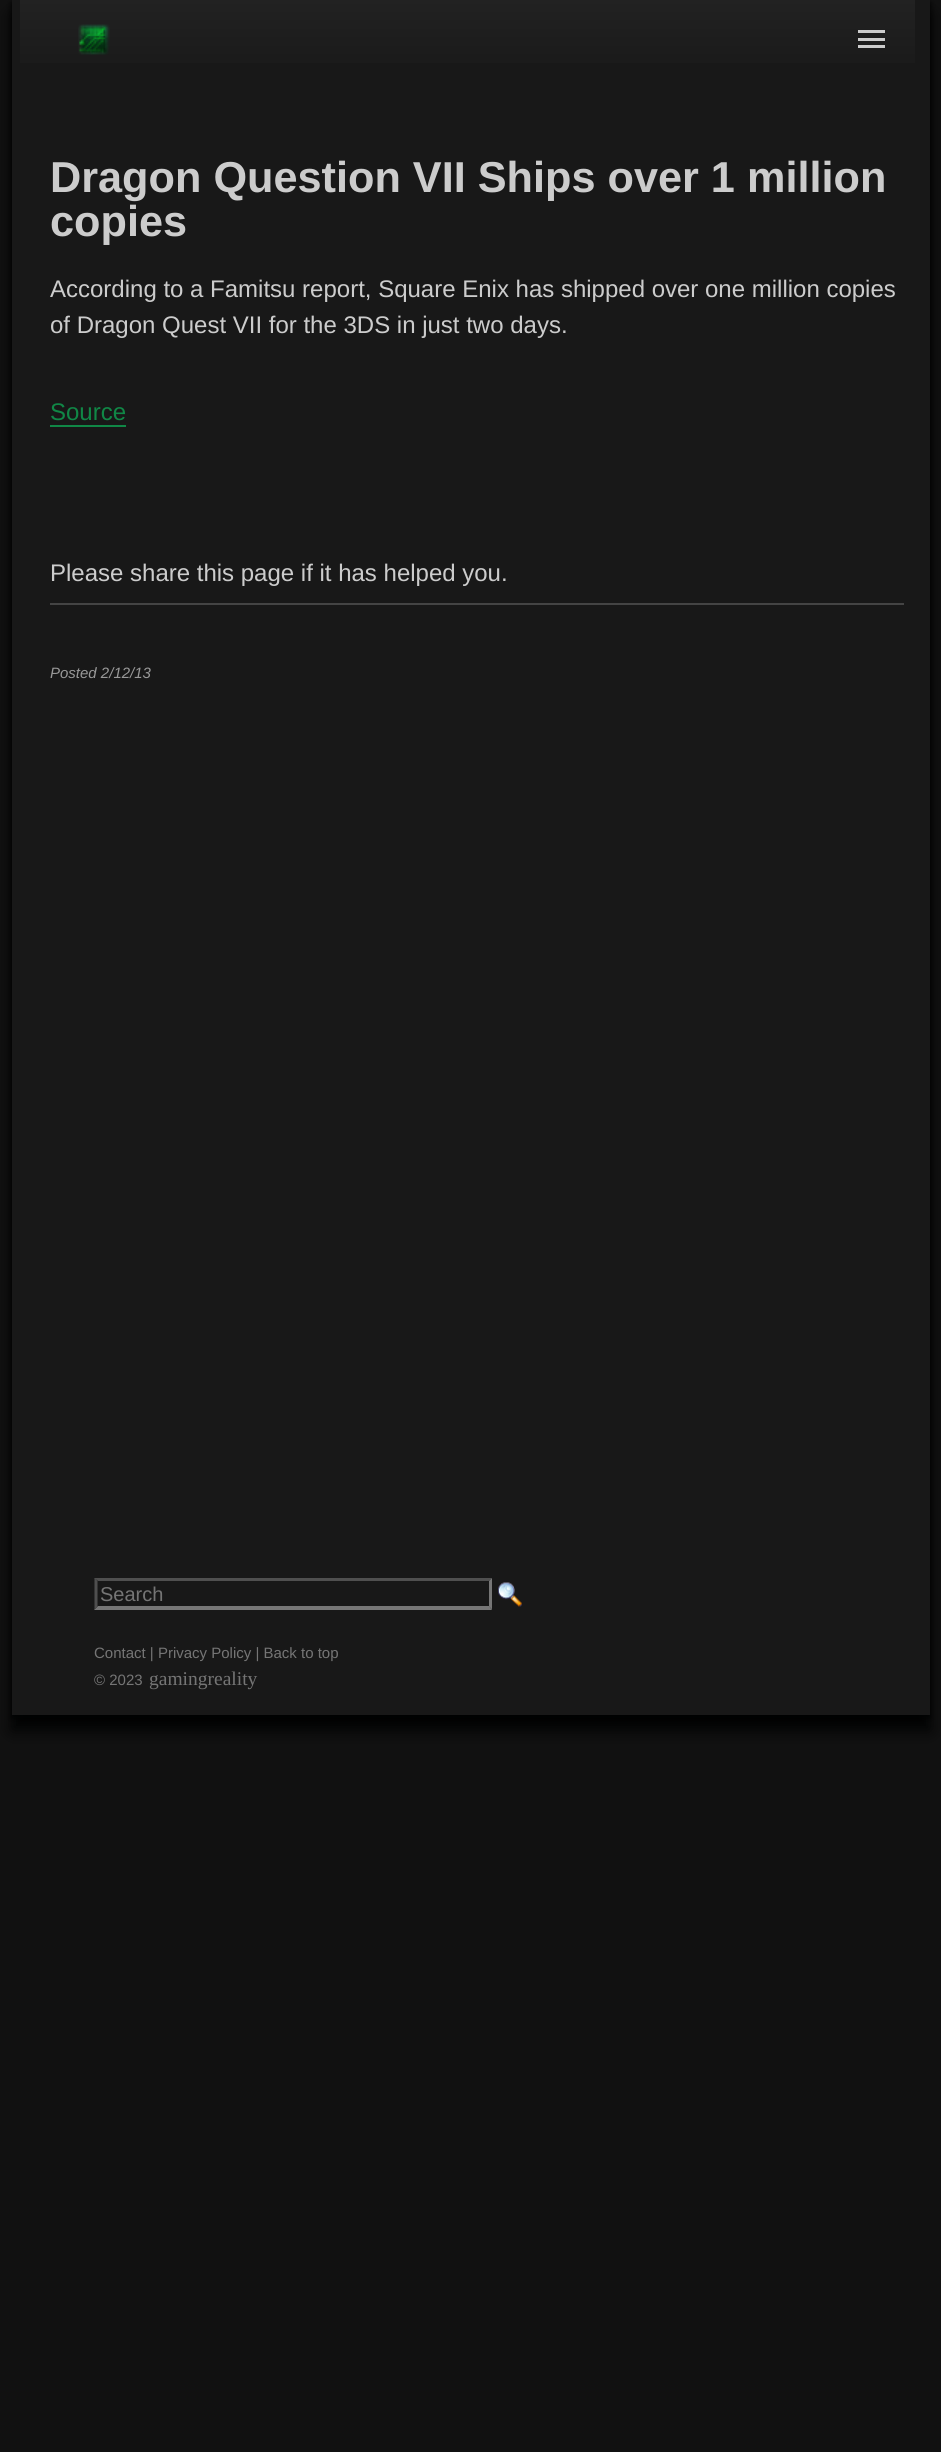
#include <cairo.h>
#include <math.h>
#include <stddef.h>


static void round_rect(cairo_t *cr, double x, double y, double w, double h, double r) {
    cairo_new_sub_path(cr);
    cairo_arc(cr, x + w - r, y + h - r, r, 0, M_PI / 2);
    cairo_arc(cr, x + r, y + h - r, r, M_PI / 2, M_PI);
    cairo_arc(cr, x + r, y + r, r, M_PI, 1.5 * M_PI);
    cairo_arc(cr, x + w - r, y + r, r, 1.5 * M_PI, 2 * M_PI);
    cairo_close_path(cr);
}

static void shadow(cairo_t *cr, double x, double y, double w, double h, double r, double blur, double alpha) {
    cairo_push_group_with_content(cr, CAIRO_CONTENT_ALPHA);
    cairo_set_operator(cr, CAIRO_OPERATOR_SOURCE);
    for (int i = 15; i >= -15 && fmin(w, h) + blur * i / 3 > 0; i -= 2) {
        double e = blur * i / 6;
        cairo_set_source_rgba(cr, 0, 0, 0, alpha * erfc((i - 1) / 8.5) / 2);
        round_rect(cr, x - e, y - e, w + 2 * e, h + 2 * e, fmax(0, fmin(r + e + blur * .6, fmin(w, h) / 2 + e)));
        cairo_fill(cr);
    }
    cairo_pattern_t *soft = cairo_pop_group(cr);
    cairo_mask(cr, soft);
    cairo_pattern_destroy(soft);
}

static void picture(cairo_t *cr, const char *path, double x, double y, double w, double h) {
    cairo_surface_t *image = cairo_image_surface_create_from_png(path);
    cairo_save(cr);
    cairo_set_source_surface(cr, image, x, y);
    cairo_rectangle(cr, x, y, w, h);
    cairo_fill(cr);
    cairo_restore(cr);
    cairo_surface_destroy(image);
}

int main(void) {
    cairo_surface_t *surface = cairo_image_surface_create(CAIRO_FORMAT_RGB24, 941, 2452);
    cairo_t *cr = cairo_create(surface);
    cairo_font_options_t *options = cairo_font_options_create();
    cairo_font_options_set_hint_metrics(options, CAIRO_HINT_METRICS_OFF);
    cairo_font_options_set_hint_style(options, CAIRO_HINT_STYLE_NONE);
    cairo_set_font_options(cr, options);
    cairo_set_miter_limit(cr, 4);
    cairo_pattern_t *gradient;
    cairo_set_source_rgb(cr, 0.067, 0.067, 0.067);
    cairo_paint(cr);
    cairo_set_source_rgb(cr, 0, 0.004, 0.004);
    shadow(cr, 12, 15, 918, 1715, 0, 7.5, 1);
    shadow(cr, 12, 3, 918, 1715, 0, 3, 1);
    cairo_set_source_rgb(cr, 0.094, 0.094, 0.094);
    cairo_rectangle(cr, 12, 0, 918, 1715);
    cairo_fill(cr);
    gradient = cairo_pattern_create_linear(467, 0, 467, 84);
    cairo_pattern_add_color_stop_rgba(gradient, 0, 0.133, 0.133, 0.133, 1);
    cairo_pattern_add_color_stop_rgba(gradient, 1, 0.094, 0.094, 0.094, 1);
    cairo_set_source(cr, gradient);
    cairo_pattern_destroy(gradient);
    cairo_rectangle(cr, 20, 0, 895, 63);
    cairo_fill(cr);
    picture(cr, "img1.png", 78, 24, 32, 31);
    cairo_set_source_rgb(cr, 0.8, 0.8, 0.8);
    cairo_rectangle(cr, 858, 38, 27, 3);
    cairo_fill(cr);
    cairo_rectangle(cr, 858, 30, 27, 3);
    cairo_fill(cr);
    cairo_rectangle(cr, 858, 45, 27, 3);
    cairo_fill(cr);
    cairo_select_font_face(cr, "Liberation Sans", CAIRO_FONT_SLANT_NORMAL, CAIRO_FONT_WEIGHT_BOLD);
    cairo_set_font_size(cr, 43.25);
    cairo_move_to(cr, 50, 192);
    cairo_show_text(cr, "Dragon Question VII Ships over 1 million");
    cairo_move_to(cr, 50, 236);
    cairo_show_text(cr, "copies");
    cairo_select_font_face(cr, "Liberation Sans", CAIRO_FONT_SLANT_NORMAL, CAIRO_FONT_WEIGHT_NORMAL);
    cairo_set_font_size(cr, 24);
    cairo_move_to(cr, 50, 297);
    cairo_show_text(cr, "According to a Famitsu report, Square Enix has shipped over one million copies");
    cairo_move_to(cr, 50, 333);
    cairo_show_text(cr, "of Dragon Quest VII for the 3DS in just two days.");
    cairo_set_source_rgb(cr, 0.063, 0.529, 0.275);
    cairo_move_to(cr, 50, 420);
    cairo_show_text(cr, "Source");
    cairo_rectangle(cr, 50, 425, 76, 2);
    cairo_fill(cr);
    cairo_set_source_rgb(cr, 0.8, 0.8, 0.8);
    cairo_move_to(cr, 50, 581);
    cairo_show_text(cr, "Please share this page if it has helped you.");
    cairo_set_source_rgb(cr, 0.267, 0.267, 0.267);
    cairo_rectangle(cr, 50, 603, 854, 2);
    cairo_fill(cr);
    cairo_select_font_face(cr, "Liberation Sans", CAIRO_FONT_SLANT_ITALIC, CAIRO_FONT_WEIGHT_NORMAL);
    cairo_set_font_size(cr, 15);
    cairo_set_source_rgb(cr, 0.6, 0.6, 0.6);
    cairo_move_to(cr, 50, 678);
    cairo_show_text(cr, "Posted 2/12/13");
    cairo_set_source_rgb(cr, 0.31, 0.31, 0.31);
    cairo_new_path(cr);
    cairo_move_to(cr, 94, 1578);
    cairo_line_to(cr, 492, 1578);
    cairo_line_to(cr, 489, 1581);
    cairo_line_to(cr, 98, 1581);
    cairo_close_path(cr);
    cairo_fill(cr);
    cairo_set_source_rgb(cr, 0.463, 0.463, 0.463);
    cairo_new_path(cr);
    cairo_move_to(cr, 492, 1578);
    cairo_line_to(cr, 492, 1609.5);
    cairo_line_to(cr, 489, 1606.5);
    cairo_line_to(cr, 489, 1581);
    cairo_close_path(cr);
    cairo_fill(cr);
    cairo_new_path(cr);
    cairo_move_to(cr, 492, 1610);
    cairo_line_to(cr, 94, 1610);
    cairo_line_to(cr, 98, 1606);
    cairo_line_to(cr, 489, 1606);
    cairo_close_path(cr);
    cairo_fill(cr);
    cairo_set_source_rgb(cr, 0.31, 0.31, 0.31);
    cairo_new_path(cr);
    cairo_move_to(cr, 94.5, 1609.5);
    cairo_line_to(cr, 94.5, 1578);
    cairo_line_to(cr, 97.5, 1581);
    cairo_line_to(cr, 97.5, 1606.5);
    cairo_close_path(cr);
    cairo_fill(cr);
    cairo_select_font_face(cr, "Liberation Sans", CAIRO_FONT_SLANT_NORMAL, CAIRO_FONT_WEIGHT_NORMAL);
    cairo_set_font_size(cr, 20);
    cairo_set_source_rgb(cr, 0.459, 0.459, 0.459);
    cairo_move_to(cr, 100, 1601);
    cairo_show_text(cr, "Search");
    picture(cr, "img2.png", 498, 1582, 24, 25);
    cairo_set_font_size(cr, 15);
    cairo_move_to(cr, 94, 1658);
    cairo_show_text(cr, "Contact | Privacy Policy | Back to top");
    cairo_move_to(cr, 94, 1685);
    cairo_show_text(cr, "© 2023");
    cairo_select_font_face(cr, "Liberation Serif", CAIRO_FONT_SLANT_NORMAL, CAIRO_FONT_WEIGHT_NORMAL);
    cairo_set_font_size(cr, 19.5);
    cairo_move_to(cr, 149, 1685);
    cairo_show_text(cr, "gamingreality");
    cairo_surface_write_to_png(surface, "page.png");
    cairo_font_options_destroy(options);
    cairo_destroy(cr);
    cairo_surface_destroy(surface);
    return 0;
}
